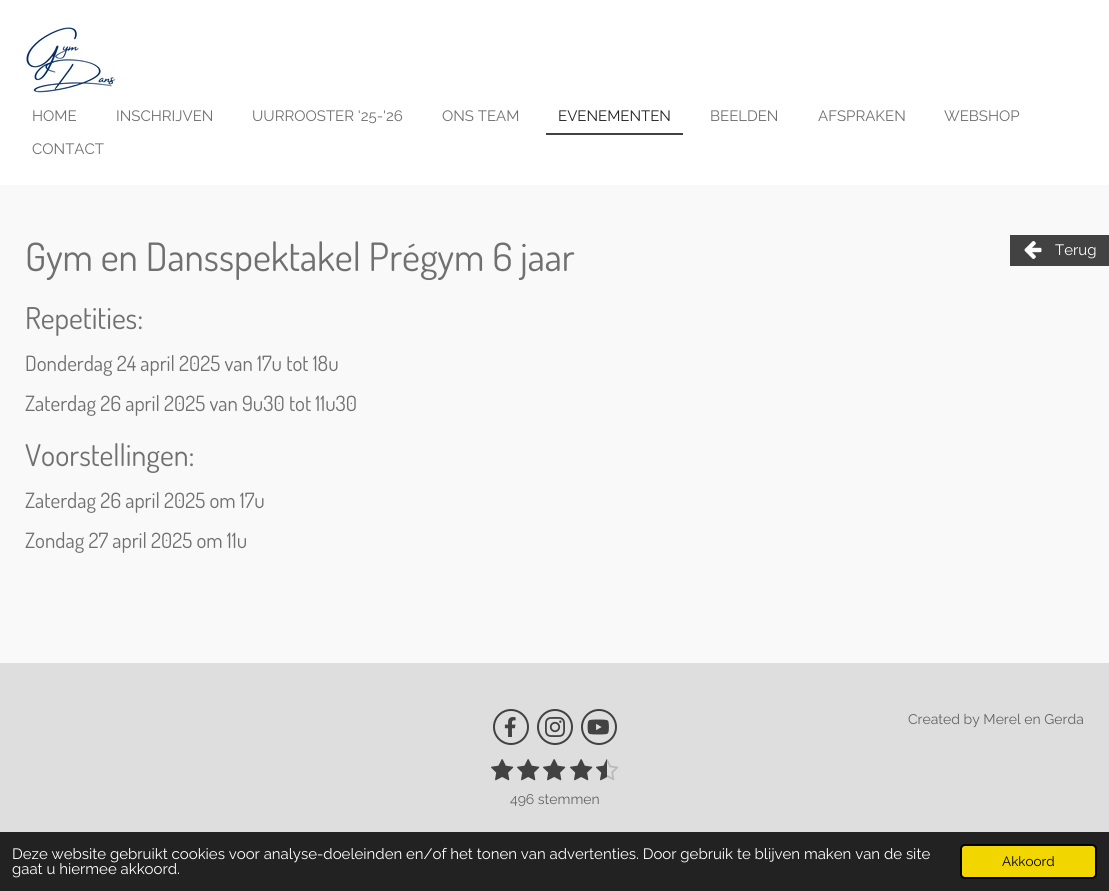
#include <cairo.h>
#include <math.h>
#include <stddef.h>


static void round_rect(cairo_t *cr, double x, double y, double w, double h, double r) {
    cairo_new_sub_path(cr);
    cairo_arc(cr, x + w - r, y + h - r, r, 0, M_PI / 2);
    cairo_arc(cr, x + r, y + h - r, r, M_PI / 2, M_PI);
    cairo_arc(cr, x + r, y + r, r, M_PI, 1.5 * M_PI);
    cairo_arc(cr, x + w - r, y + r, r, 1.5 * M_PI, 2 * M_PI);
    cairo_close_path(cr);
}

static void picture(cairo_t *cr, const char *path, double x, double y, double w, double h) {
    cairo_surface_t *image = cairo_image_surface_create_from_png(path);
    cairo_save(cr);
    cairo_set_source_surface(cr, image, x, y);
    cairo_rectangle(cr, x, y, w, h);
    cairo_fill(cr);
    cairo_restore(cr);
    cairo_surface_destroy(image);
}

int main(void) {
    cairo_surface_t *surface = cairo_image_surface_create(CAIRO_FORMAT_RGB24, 1109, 891);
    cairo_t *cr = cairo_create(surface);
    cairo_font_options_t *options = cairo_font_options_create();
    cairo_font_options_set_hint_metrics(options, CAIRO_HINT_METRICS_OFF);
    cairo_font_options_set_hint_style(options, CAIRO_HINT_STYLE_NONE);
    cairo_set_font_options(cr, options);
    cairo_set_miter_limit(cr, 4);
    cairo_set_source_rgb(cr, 1, 1, 1);
    cairo_paint(cr);
    picture(cr, "img1.png", 26, 27, 90, 66);
    cairo_select_font_face(cr, "Raleway", CAIRO_FONT_SLANT_NORMAL, CAIRO_FONT_WEIGHT_NORMAL);
    cairo_set_font_size(cr, 15);
    cairo_set_source_rgb(cr, 0.439, 0.439, 0.439);
    cairo_move_to(cr, 32, 121);
    cairo_show_text(cr, "HOME");
    cairo_move_to(cr, 116, 121);
    cairo_show_text(cr, "INSCHRIJVEN");
    cairo_move_to(cr, 252, 121);
    cairo_show_text(cr, "UURROOSTER '25-'26");
    cairo_move_to(cr, 442, 121);
    cairo_show_text(cr, "ONS TEAM");
    cairo_set_source_rgb(cr, 0.259, 0.259, 0.259);
    cairo_rectangle(cr, 546, 133, 137, 2);
    cairo_fill(cr);
    cairo_set_source_rgb(cr, 0.141, 0.141, 0.141);
    cairo_move_to(cr, 558, 121);
    cairo_show_text(cr, "EVENEMENTEN");
    cairo_set_source_rgb(cr, 0.439, 0.439, 0.439);
    cairo_move_to(cr, 710, 121);
    cairo_show_text(cr, "BEELDEN");
    cairo_move_to(cr, 818, 121);
    cairo_show_text(cr, "AFSPRAKEN");
    cairo_move_to(cr, 944, 121);
    cairo_show_text(cr, "WEBSHOP");
    cairo_move_to(cr, 32, 154);
    cairo_show_text(cr, "CONTACT");
    cairo_set_source_rgb(cr, 0.976, 0.976, 0.976);
    cairo_rectangle(cr, 0, 185, 1109, 478);
    cairo_fill(cr);
    cairo_select_font_face(cr, "Dosis", CAIRO_FONT_SLANT_NORMAL, CAIRO_FONT_WEIGHT_NORMAL);
    cairo_set_font_size(cr, 39);
    cairo_set_source_rgb(cr, 0.439, 0.439, 0.439);
    cairo_move_to(cr, 25, 271);
    cairo_show_text(cr, "Gym en Dansspektakel Prégym 6 jaar");
    cairo_set_source_rgb(cr, 0.259, 0.259, 0.259);
    cairo_rectangle(cr, 1010, 235, 99, 31);
    cairo_fill(cr);
    picture(cr, "img2.png", 1024, 241, 18, 18);
    cairo_select_font_face(cr, "Raleway", CAIRO_FONT_SLANT_NORMAL, CAIRO_FONT_WEIGHT_NORMAL);
    cairo_set_font_size(cr, 15);
    cairo_set_source_rgb(cr, 1, 1, 1);
    cairo_move_to(cr, 1055, 255);
    cairo_show_text(cr, "Terug");
    cairo_select_font_face(cr, "Dosis", CAIRO_FONT_SLANT_NORMAL, CAIRO_FONT_WEIGHT_NORMAL);
    cairo_set_font_size(cr, 30);
    cairo_set_source_rgb(cr, 0.439, 0.439, 0.439);
    cairo_move_to(cr, 25, 329);
    cairo_show_text(cr, "Repetities:");
    cairo_set_font_size(cr, 21);
    cairo_move_to(cr, 25, 371);
    cairo_show_text(cr, "Donderdag 24 april 2025 van 17u tot 18u");
    cairo_move_to(cr, 25, 411);
    cairo_show_text(cr, "Zaterdag 26 april 2025 van 9u30 tot 11u30");
    cairo_set_font_size(cr, 30);
    cairo_move_to(cr, 25, 466);
    cairo_show_text(cr, "Voorstellingen:");
    cairo_set_font_size(cr, 21);
    cairo_move_to(cr, 25, 508);
    cairo_show_text(cr, "Zaterdag 26 april 2025 om 17u");
    cairo_move_to(cr, 25, 548);
    cairo_show_text(cr, "Zondag 27 april 2025 om 11u");
    cairo_set_source_rgb(cr, 0.871, 0.871, 0.871);
    cairo_rectangle(cr, 0, 663, 1109, 169);
    cairo_fill(cr);
    cairo_select_font_face(cr, "Raleway", CAIRO_FONT_SLANT_NORMAL, CAIRO_FONT_WEIGHT_NORMAL);
    cairo_set_font_size(cr, 14);
    cairo_set_source_rgb(cr, 0.392, 0.392, 0.392);
    cairo_move_to(cr, 908, 724);
    cairo_show_text(cr, "Created by Merel en Gerda");
    cairo_new_path(cr);
    cairo_arc(cr, 511, 727, 17, 0, 2 * M_PI);
    cairo_set_source_rgb(cr, 0.259, 0.259, 0.259);
    cairo_stroke(cr);
    picture(cr, "img3.png", 504, 717, 12, 20);
    cairo_arc(cr, 555, 727, 17, 0, 2 * M_PI);
    cairo_stroke(cr);
    picture(cr, "img4.png", 545, 717, 20, 20);
    cairo_arc(cr, 599, 727, 17, 0, 2 * M_PI);
    cairo_stroke(cr);
    picture(cr, "img5.png", 587, 719, 22, 16);
    picture(cr, "img6.png", 491, 759, 23, 22);
    picture(cr, "img6.png", 517, 759, 23, 22);
    picture(cr, "img6.png", 543, 759, 23, 22);
    picture(cr, "img6.png", 570, 759, 23, 22);
    picture(cr, "img7.png", 596, 759, 11, 22);
    picture(cr, "img8.png", 607, 759, 12, 22);
    cairo_set_source_rgb(cr, 0.392, 0.392, 0.392);
    cairo_move_to(cr, 510, 804);
    cairo_show_text(cr, "496 stemmen");
    cairo_set_source_rgb(cr, 0.133, 0.133, 0.133);
    cairo_rectangle(cr, 0, 832, 1109, 59);
    cairo_fill(cr);
    cairo_set_font_size(cr, 15);
    cairo_set_source_rgb(cr, 1, 1, 1);
    cairo_move_to(cr, 12, 859);
    cairo_show_text(cr, "Deze website gebruikt cookies voor analyse-doeleinden en/of het tonen van advertenties. Door gebruik te blijven maken van de site");
    cairo_move_to(cr, 12, 874);
    cairo_show_text(cr, "gaat u hiermee akkoord.");
    cairo_set_source_rgb(cr, 0.945, 0.839, 0);
    round_rect(cr, 961, 845, 135, 33, 4);
    cairo_fill_preserve(cr);
    cairo_set_source_rgb(cr, 0, 0, 0);
    cairo_stroke(cr);
    cairo_set_font_size(cr, 13.5);
    cairo_move_to(cr, 1002, 866);
    cairo_show_text(cr, "Akkoord");
    cairo_surface_write_to_png(surface, "page.png");
    cairo_font_options_destroy(options);
    cairo_destroy(cr);
    cairo_surface_destroy(surface);
    return 0;
}
